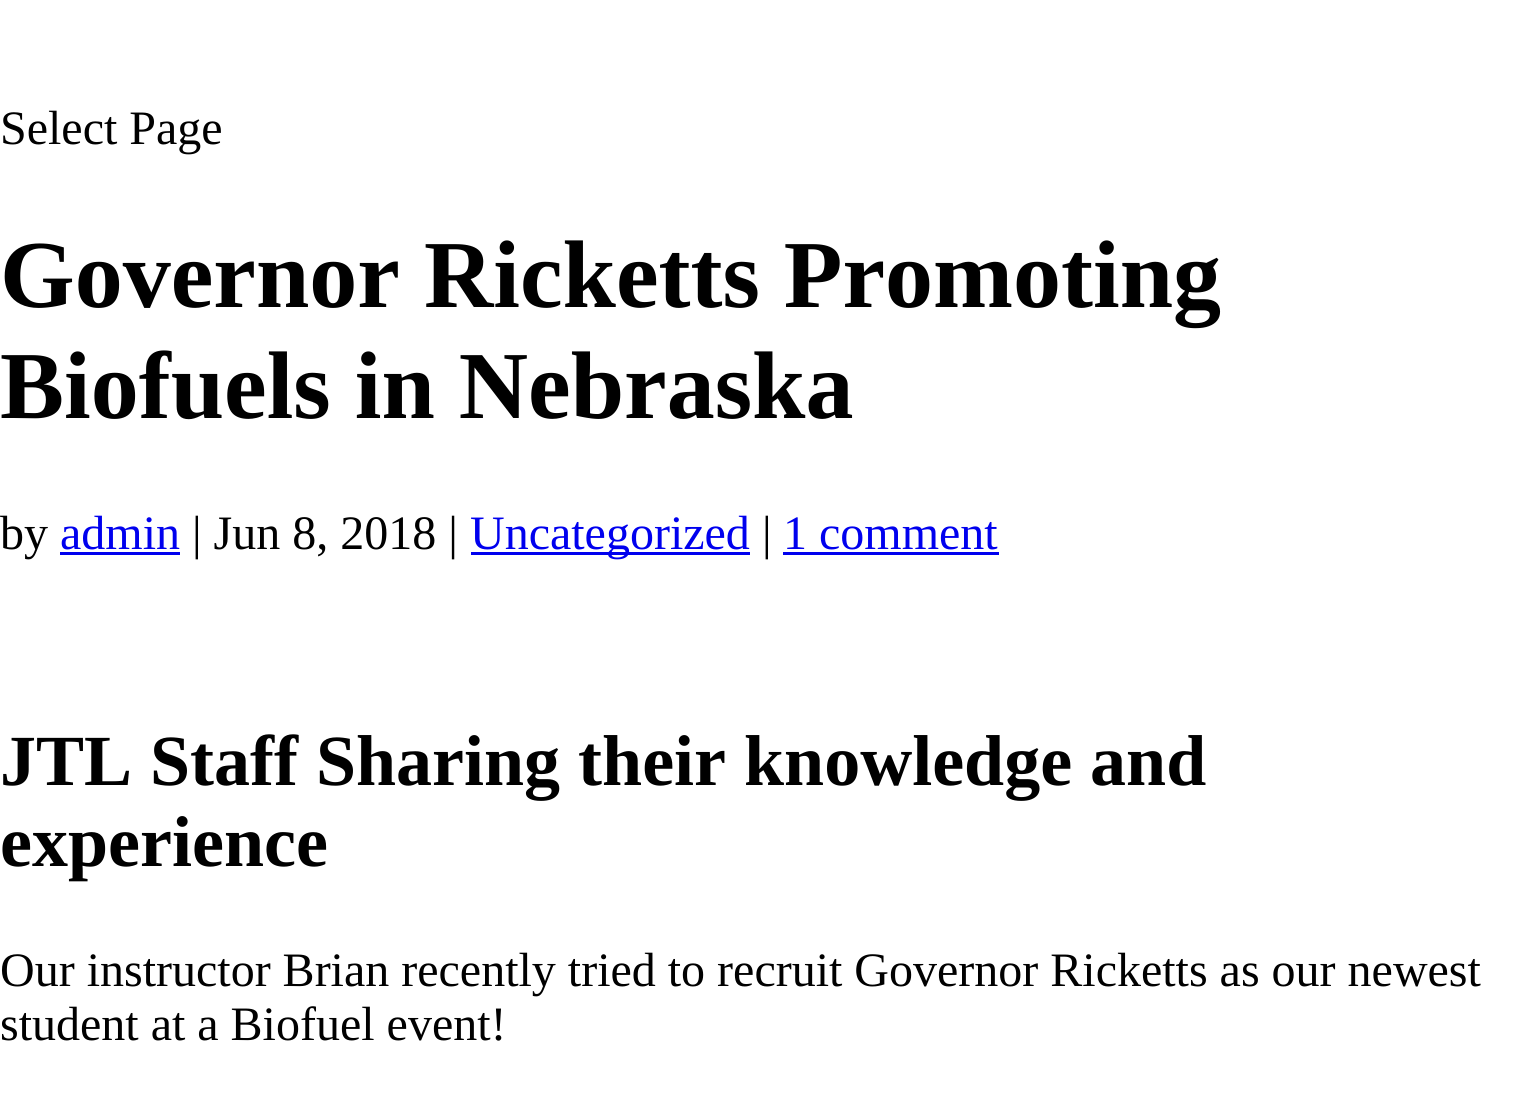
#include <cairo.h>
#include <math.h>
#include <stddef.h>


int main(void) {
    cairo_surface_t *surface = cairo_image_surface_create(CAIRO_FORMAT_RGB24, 1519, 1107);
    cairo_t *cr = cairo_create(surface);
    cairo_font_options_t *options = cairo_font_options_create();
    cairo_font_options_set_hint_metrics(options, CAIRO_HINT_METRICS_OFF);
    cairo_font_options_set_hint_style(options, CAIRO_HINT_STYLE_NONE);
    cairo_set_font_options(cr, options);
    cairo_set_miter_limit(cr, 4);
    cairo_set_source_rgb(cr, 1, 1, 1);
    cairo_paint(cr);
    cairo_select_font_face(cr, "Liberation Serif", CAIRO_FONT_SLANT_NORMAL, CAIRO_FONT_WEIGHT_NORMAL);
    cairo_set_font_size(cr, 48);
    cairo_set_source_rgb(cr, 0, 0, 0);
    cairo_move_to(cr, 0, 144);
    cairo_show_text(cr, "Select Page");
    cairo_select_font_face(cr, "Liberation Serif", CAIRO_FONT_SLANT_NORMAL, CAIRO_FONT_WEIGHT_BOLD);
    cairo_set_font_size(cr, 96);
    cairo_move_to(cr, 0, 307);
    cairo_show_text(cr, "Governor Ricketts Promoting");
    cairo_move_to(cr, 0, 418);
    cairo_show_text(cr, "Biofuels in Nebraska");
    cairo_select_font_face(cr, "Liberation Serif", CAIRO_FONT_SLANT_NORMAL, CAIRO_FONT_WEIGHT_NORMAL);
    cairo_set_font_size(cr, 48);
    cairo_move_to(cr, 0, 549);
    cairo_show_text(cr, "by");
    cairo_set_source_rgb(cr, 0, 0, 0.933);
    cairo_move_to(cr, 60, 549);
    cairo_show_text(cr, "admin");
    cairo_rectangle(cr, 60, 552, 120, 3);
    cairo_fill(cr);
    cairo_set_source_rgb(cr, 0, 0, 0);
    cairo_move_to(cr, 192, 549);
    cairo_show_text(cr, "| Jun 8, 2018 |");
    cairo_set_source_rgb(cr, 0, 0, 0.933);
    cairo_rectangle(cr, 471, 552, 279, 3);
    cairo_fill(cr);
    cairo_move_to(cr, 470, 549);
    cairo_show_text(cr, "Uncategorized");
    cairo_set_source_rgb(cr, 0, 0, 0);
    cairo_move_to(cr, 762, 549);
    cairo_show_text(cr, "|");
    cairo_set_source_rgb(cr, 0, 0, 0.933);
    cairo_move_to(cr, 783, 549);
    cairo_show_text(cr, "1 comment");
    cairo_rectangle(cr, 783, 552, 216, 3);
    cairo_fill(cr);
    cairo_select_font_face(cr, "Liberation Serif", CAIRO_FONT_SLANT_NORMAL, CAIRO_FONT_WEIGHT_BOLD);
    cairo_set_font_size(cr, 72);
    cairo_set_source_rgb(cr, 0, 0, 0);
    cairo_move_to(cr, 0, 785);
    cairo_show_text(cr, "JTL Staff Sharing their knowledge and");
    cairo_move_to(cr, 0, 866);
    cairo_show_text(cr, "experience");
    cairo_select_font_face(cr, "Liberation Serif", CAIRO_FONT_SLANT_NORMAL, CAIRO_FONT_WEIGHT_NORMAL);
    cairo_set_font_size(cr, 48);
    cairo_move_to(cr, 0, 986);
    cairo_show_text(cr, "Our instructor Brian recently tried to recruit Governor Ricketts as our newest");
    cairo_move_to(cr, 0, 1040);
    cairo_show_text(cr, "student at a Biofuel event!");
    cairo_surface_write_to_png(surface, "page.png");
    cairo_font_options_destroy(options);
    cairo_destroy(cr);
    cairo_surface_destroy(surface);
    return 0;
}
